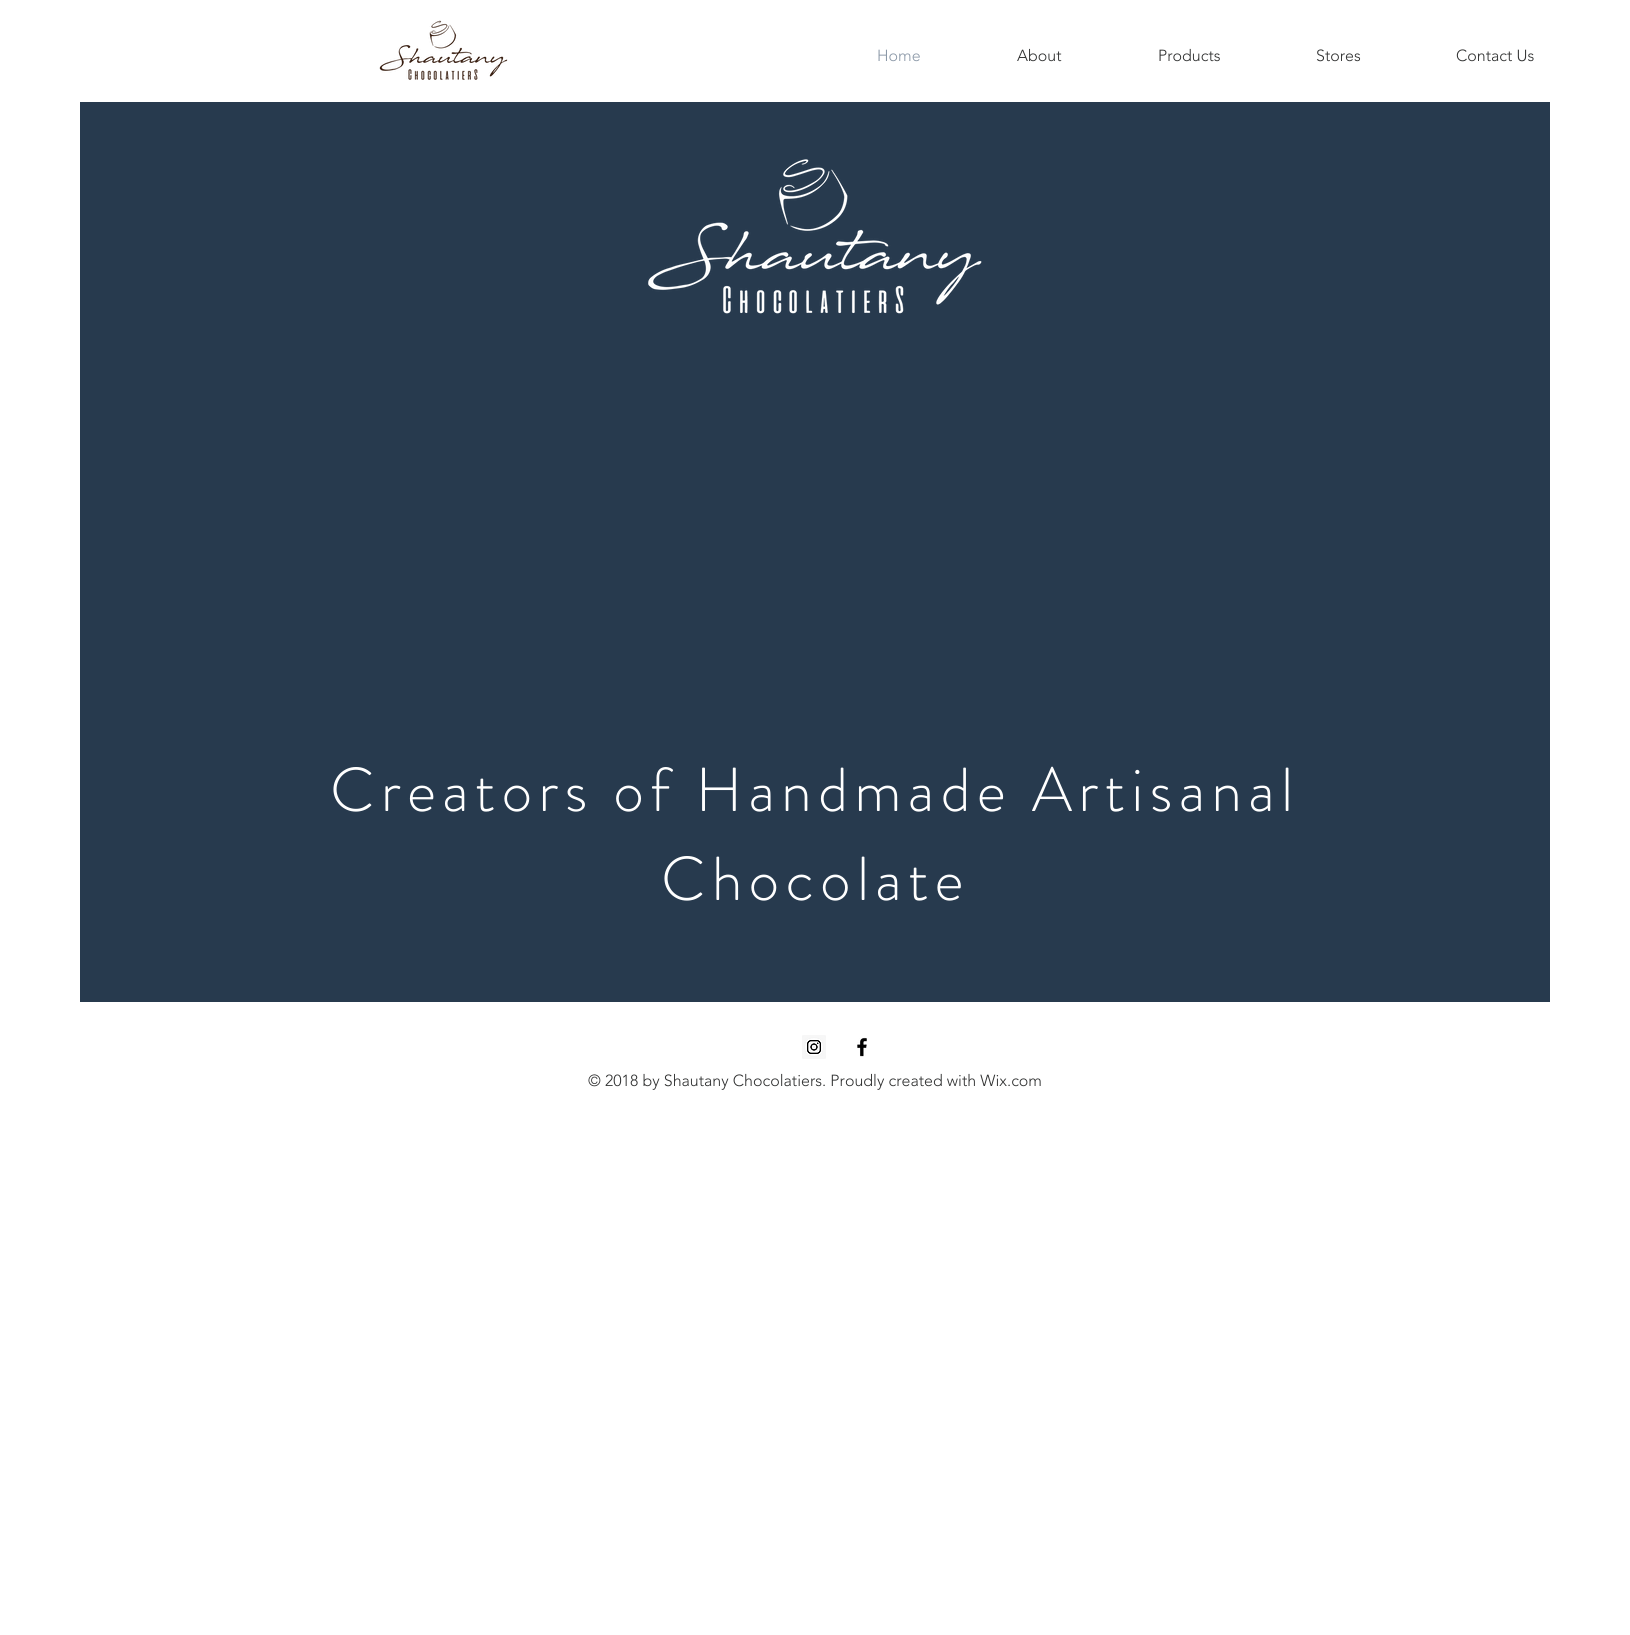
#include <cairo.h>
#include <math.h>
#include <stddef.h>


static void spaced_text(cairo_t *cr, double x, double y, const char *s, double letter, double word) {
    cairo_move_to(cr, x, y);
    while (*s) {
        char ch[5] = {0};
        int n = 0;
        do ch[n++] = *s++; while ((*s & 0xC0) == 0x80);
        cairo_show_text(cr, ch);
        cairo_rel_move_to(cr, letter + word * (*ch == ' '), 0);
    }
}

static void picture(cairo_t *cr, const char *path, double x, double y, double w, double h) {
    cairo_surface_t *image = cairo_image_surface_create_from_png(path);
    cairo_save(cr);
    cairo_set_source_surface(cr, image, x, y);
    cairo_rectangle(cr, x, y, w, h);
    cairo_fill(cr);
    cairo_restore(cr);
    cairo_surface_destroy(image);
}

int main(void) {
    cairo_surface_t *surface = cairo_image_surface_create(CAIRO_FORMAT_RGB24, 1630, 1635);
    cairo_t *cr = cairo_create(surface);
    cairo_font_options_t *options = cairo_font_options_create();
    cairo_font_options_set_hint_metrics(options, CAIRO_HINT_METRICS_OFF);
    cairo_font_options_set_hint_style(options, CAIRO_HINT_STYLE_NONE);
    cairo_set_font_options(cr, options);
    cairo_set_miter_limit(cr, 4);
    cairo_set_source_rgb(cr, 1, 1, 1);
    cairo_paint(cr);
    picture(cr, "img1.png", 379, 20, 129, 60);
    cairo_select_font_face(cr, "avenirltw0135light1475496 Light", CAIRO_FONT_SLANT_NORMAL, CAIRO_FONT_WEIGHT_NORMAL);
    cairo_set_font_size(cr, 16);
    cairo_set_source_rgb(cr, 0.545, 0.596, 0.655);
    cairo_move_to(cr, 877, 61);
    cairo_show_text(cr, "Home");
    cairo_set_source_rgb(cr, 0.188, 0.192, 0.192);
    cairo_move_to(cr, 1017, 61);
    cairo_show_text(cr, "About");
    cairo_move_to(cr, 1158, 61);
    cairo_show_text(cr, "Products");
    cairo_move_to(cr, 1316, 61);
    cairo_show_text(cr, "Stores");
    cairo_move_to(cr, 1456, 61);
    cairo_show_text(cr, "Contact Us");
    cairo_set_source_rgb(cr, 0.153, 0.227, 0.306);
    cairo_rectangle(cr, 80, 102, 1470, 900);
    cairo_fill(cr);
    picture(cr, "img2.png", 648, 159, 334, 155);
    cairo_select_font_face(cr, "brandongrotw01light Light", CAIRO_FONT_SLANT_NORMAL, CAIRO_FONT_WEIGHT_NORMAL);
    cairo_set_font_size(cr, 62);
    cairo_set_source_rgb(cr, 1, 1, 1);
    spaced_text(cr, 330, 811, "Creators of Handmade Artisanal", 6.2, 0);
    spaced_text(cr, 661, 900, "Chocolate", 6.2, 0);
    picture(cr, "img3.png", 802, 1035, 24, 24);
    picture(cr, "img4.png", 857, 1037, 10, 20);
    cairo_select_font_face(cr, "avenirltw0135light1475496 Light", CAIRO_FONT_SLANT_NORMAL, CAIRO_FONT_WEIGHT_NORMAL);
    cairo_set_font_size(cr, 16);
    cairo_set_source_rgb(cr, 0.188, 0.192, 0.192);
    cairo_move_to(cr, 588, 1086);
    cairo_show_text(cr, "© 2018 by Shautany Chocolatiers. Proudly created with Wix.com");
    cairo_surface_write_to_png(surface, "page.png");
    cairo_font_options_destroy(options);
    cairo_destroy(cr);
    cairo_surface_destroy(surface);
    return 0;
}
